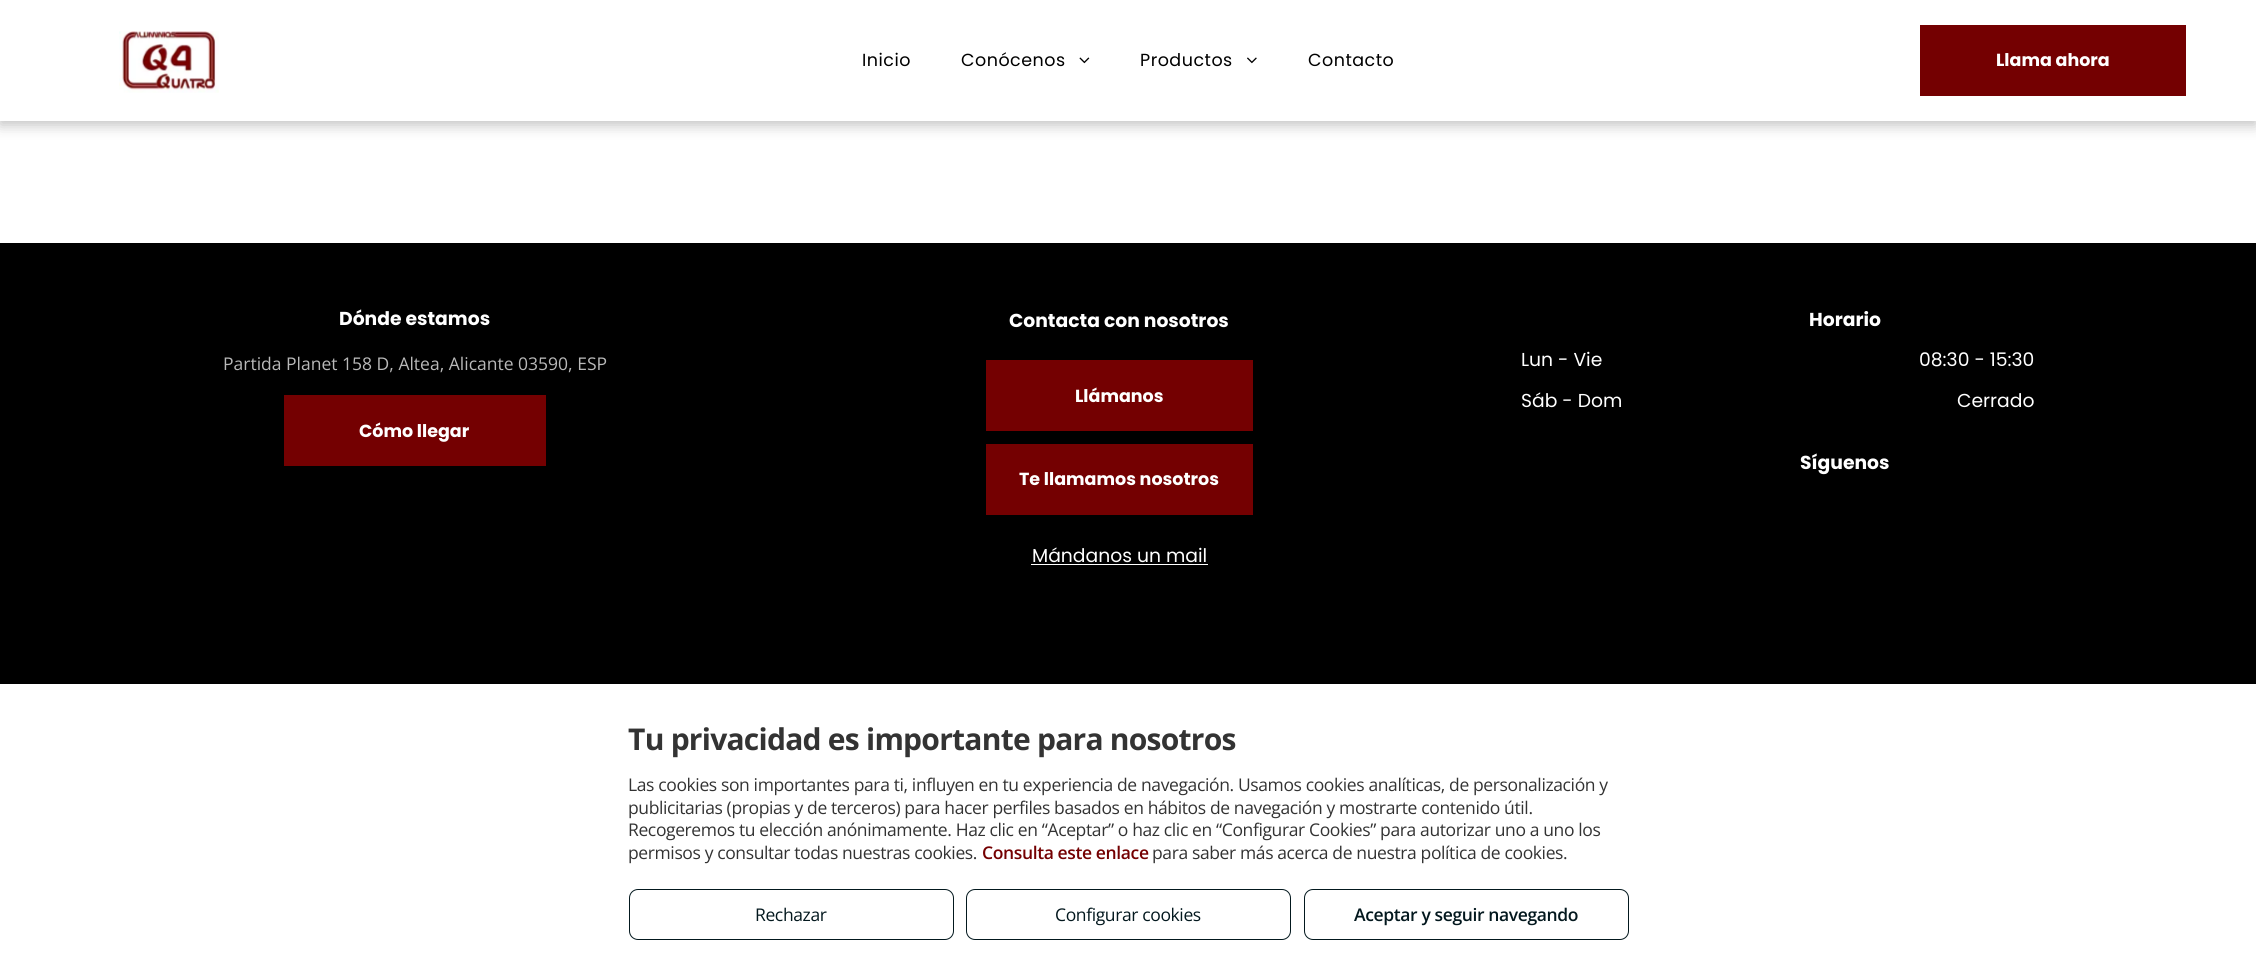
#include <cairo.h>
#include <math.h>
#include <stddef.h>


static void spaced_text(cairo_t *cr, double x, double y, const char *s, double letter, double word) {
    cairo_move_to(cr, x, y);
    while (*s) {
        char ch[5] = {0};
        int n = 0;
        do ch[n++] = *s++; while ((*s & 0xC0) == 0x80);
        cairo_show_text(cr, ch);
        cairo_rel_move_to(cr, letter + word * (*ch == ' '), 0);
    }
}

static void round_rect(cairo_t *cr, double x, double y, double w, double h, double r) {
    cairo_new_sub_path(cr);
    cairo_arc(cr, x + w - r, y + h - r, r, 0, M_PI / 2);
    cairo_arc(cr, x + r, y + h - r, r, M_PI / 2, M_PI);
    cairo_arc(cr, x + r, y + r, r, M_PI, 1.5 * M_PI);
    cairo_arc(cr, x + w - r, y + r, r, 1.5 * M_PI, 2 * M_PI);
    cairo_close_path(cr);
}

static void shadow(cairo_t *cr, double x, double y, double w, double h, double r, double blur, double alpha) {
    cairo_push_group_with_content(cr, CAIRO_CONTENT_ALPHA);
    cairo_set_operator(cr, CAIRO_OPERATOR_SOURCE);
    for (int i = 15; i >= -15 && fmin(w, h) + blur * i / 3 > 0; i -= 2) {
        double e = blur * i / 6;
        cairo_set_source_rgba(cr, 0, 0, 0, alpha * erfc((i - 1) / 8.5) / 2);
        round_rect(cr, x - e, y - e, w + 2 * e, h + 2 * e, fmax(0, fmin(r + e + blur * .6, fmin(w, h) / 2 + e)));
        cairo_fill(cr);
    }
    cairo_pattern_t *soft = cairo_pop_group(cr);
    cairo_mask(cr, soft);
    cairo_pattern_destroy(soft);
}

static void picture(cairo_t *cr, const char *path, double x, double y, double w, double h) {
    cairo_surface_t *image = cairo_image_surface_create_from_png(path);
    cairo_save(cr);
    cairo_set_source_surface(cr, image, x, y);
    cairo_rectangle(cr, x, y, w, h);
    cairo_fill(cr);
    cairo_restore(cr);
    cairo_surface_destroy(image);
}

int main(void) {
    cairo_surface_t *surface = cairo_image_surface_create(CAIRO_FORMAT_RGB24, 2256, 965);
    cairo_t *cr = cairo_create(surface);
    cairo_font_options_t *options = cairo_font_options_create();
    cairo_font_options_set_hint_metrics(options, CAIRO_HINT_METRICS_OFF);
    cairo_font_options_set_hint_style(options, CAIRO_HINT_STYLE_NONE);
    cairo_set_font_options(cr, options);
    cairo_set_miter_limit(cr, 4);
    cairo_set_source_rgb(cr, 1, 1, 1);
    cairo_paint(cr);
    cairo_set_source_rgb(cr, 0, 0, 0);
    shadow(cr, 0, 4, 2256, 121, 0, 7, 0.25);
    cairo_set_source_rgb(cr, 1, 1, 1);
    cairo_rectangle(cr, 0, 0, 2256, 121);
    cairo_fill(cr);
    picture(cr, "img1.png", 119, 31, 100, 62);
    cairo_select_font_face(cr, "Poppins", CAIRO_FONT_SLANT_NORMAL, CAIRO_FONT_WEIGHT_NORMAL);
    cairo_set_font_size(cr, 17.5);
    cairo_set_source_rgb(cr, 0, 0, 0);
    spaced_text(cr, 862, 66, "Inicio", 0.5, 0);
    spaced_text(cr, 961, 66, "Conócenos", 0.5, 0);
    picture(cr, "img2.png", 1079, 57, 11, 7);
    spaced_text(cr, 1140, 66, "Productos", 0.5, 0);
    picture(cr, "img3.png", 1247, 57, 10, 7);
    spaced_text(cr, 1308, 66, "Contacto", 0.5, 0);
    cairo_set_source_rgb(cr, 0.455, 0, 0.004);
    cairo_rectangle(cr, 1920, 25, 266, 71);
    cairo_fill(cr);
    cairo_select_font_face(cr, "Poppins", CAIRO_FONT_SLANT_NORMAL, CAIRO_FONT_WEIGHT_BOLD);
    cairo_set_source_rgb(cr, 1, 1, 1);
    cairo_move_to(cr, 1996, 66);
    cairo_show_text(cr, "Llama ahora");
    cairo_set_source_rgb(cr, 0, 0, 0);
    cairo_rectangle(cr, 0, 243, 2256, 441);
    cairo_fill(cr);
    cairo_set_font_size(cr, 18.75);
    cairo_set_source_rgb(cr, 1, 1, 1);
    cairo_move_to(cr, 339, 325);
    cairo_show_text(cr, "Dónde estamos");
    cairo_select_font_face(cr, "Open Sans", CAIRO_FONT_SLANT_NORMAL, CAIRO_FONT_WEIGHT_NORMAL);
    cairo_set_font_size(cr, 17.5);
    cairo_set_source_rgb(cr, 0.725, 0.725, 0.725);
    cairo_move_to(cr, 223, 370);
    cairo_show_text(cr, "Partida Planet 158 D, Altea, Alicante 03590, ESP");
    cairo_set_source_rgb(cr, 0.455, 0, 0.004);
    cairo_rectangle(cr, 284, 395, 262, 71);
    cairo_fill(cr);
    cairo_select_font_face(cr, "Poppins", CAIRO_FONT_SLANT_NORMAL, CAIRO_FONT_WEIGHT_BOLD);
    cairo_set_source_rgb(cr, 1, 1, 1);
    cairo_move_to(cr, 359, 437);
    cairo_show_text(cr, "Cómo llegar");
    cairo_set_font_size(cr, 18.75);
    cairo_move_to(cr, 1009, 327);
    cairo_show_text(cr, "Contacta con nosotros");
    cairo_set_source_rgb(cr, 0.455, 0, 0.004);
    cairo_rectangle(cr, 986, 360, 267, 71);
    cairo_fill(cr);
    cairo_set_font_size(cr, 17.5);
    cairo_set_source_rgb(cr, 1, 1, 1);
    cairo_move_to(cr, 1075, 402);
    cairo_show_text(cr, "Llámanos");
    cairo_set_source_rgb(cr, 0.455, 0, 0.004);
    cairo_rectangle(cr, 986, 444, 267, 71);
    cairo_fill(cr);
    cairo_set_source_rgb(cr, 1, 1, 1);
    cairo_move_to(cr, 1019, 485);
    cairo_show_text(cr, "Te llamamos nosotros");
    cairo_select_font_face(cr, "Poppins", CAIRO_FONT_SLANT_NORMAL, CAIRO_FONT_WEIGHT_NORMAL);
    cairo_set_font_size(cr, 18.75);
    cairo_move_to(cr, 1032, 562);
    cairo_show_text(cr, "Mándanos un mail");
    cairo_rectangle(cr, 1031, 564, 177, 1);
    cairo_fill(cr);
    cairo_select_font_face(cr, "Poppins", CAIRO_FONT_SLANT_NORMAL, CAIRO_FONT_WEIGHT_BOLD);
    cairo_move_to(cr, 1809, 326);
    cairo_show_text(cr, "Horario");
    cairo_select_font_face(cr, "Poppins", CAIRO_FONT_SLANT_NORMAL, CAIRO_FONT_WEIGHT_NORMAL);
    cairo_move_to(cr, 1521, 366);
    cairo_show_text(cr, "Lun - Vie");
    cairo_move_to(cr, 1919, 366);
    cairo_show_text(cr, "08:30 - 15:30");
    cairo_move_to(cr, 1521, 407);
    cairo_show_text(cr, "Sáb - Dom");
    cairo_move_to(cr, 1957, 407);
    cairo_show_text(cr, "Cerrado");
    cairo_select_font_face(cr, "Poppins", CAIRO_FONT_SLANT_NORMAL, CAIRO_FONT_WEIGHT_BOLD);
    cairo_move_to(cr, 1800, 469);
    cairo_show_text(cr, "Síguenos");
    cairo_set_source_rgb(cr, 0, 0, 0);
    shadow(cr, 0, 681, 2256, 282, 0, 6, 0.1);
    cairo_set_source_rgb(cr, 1, 1, 1);
    cairo_rectangle(cr, 0, 684, 2256, 281);
    cairo_fill(cr);
    cairo_select_font_face(cr, "Open Sans", CAIRO_FONT_SLANT_NORMAL, CAIRO_FONT_WEIGHT_BOLD);
    cairo_set_font_size(cr, 30);
    cairo_set_source_rgb(cr, 0.2, 0.2, 0.2);
    spaced_text(cr, 628, 750, "Tu privacidad es importante para nosotros", -0.75, 0);
    cairo_select_font_face(cr, "Open Sans", CAIRO_FONT_SLANT_NORMAL, CAIRO_FONT_WEIGHT_NORMAL);
    cairo_set_font_size(cr, 17.5);
    spaced_text(cr, 628, 791, "Las cookies son importantes para ti, influyen en tu experiencia de navegación. Usamos cookies analíticas, de personalización y", -0.38, 0);
    spaced_text(cr, 628, 814, "publicitarias (propias y de terceros) para hacer perfiles basados en hábitos de navegación y mostrarte contenido útil.", -0.38, 0);
    spaced_text(cr, 628, 836, "Recogeremos tu elección anónimamente. Haz clic en “Aceptar” o haz clic en “Configurar Cookies” para autorizar uno a uno los", -0.38, 0);
    spaced_text(cr, 628, 859, "permisos y consultar todas nuestras cookies.", -0.38, 0);
    cairo_select_font_face(cr, "Open Sans SemiBold", CAIRO_FONT_SLANT_NORMAL, CAIRO_FONT_WEIGHT_NORMAL);
    cairo_set_source_rgb(cr, 0.455, 0, 0.004);
    spaced_text(cr, 982, 859, "Consulta este enlace", -0.38, 0);
    cairo_select_font_face(cr, "Open Sans", CAIRO_FONT_SLANT_NORMAL, CAIRO_FONT_WEIGHT_NORMAL);
    cairo_set_source_rgb(cr, 0.2, 0.2, 0.2);
    spaced_text(cr, 1152, 859, "para saber más acerca de nuestra política de cookies.", -0.38, 0);
    round_rect(cr, 629.5, 889.5, 324, 50, 8.5);
    cairo_set_source_rgb(cr, 0.012, 0.094, 0.118);
    cairo_set_line_width(cr, 1);
    cairo_stroke(cr);
    spaced_text(cr, 755, 921, "Rechazar", -0.38, 0);
    round_rect(cr, 966.5, 889.5, 324, 50, 8.5);
    cairo_stroke(cr);
    spaced_text(cr, 1055, 921, "Configurar cookies", -0.38, 0);
    round_rect(cr, 1304.5, 889.5, 324, 50, 8.5);
    cairo_stroke(cr);
    cairo_select_font_face(cr, "Open Sans SemiBold", CAIRO_FONT_SLANT_NORMAL, CAIRO_FONT_WEIGHT_NORMAL);
    spaced_text(cr, 1354, 921, "Aceptar y seguir navegando", -0.38, 0);
    cairo_surface_write_to_png(surface, "page.png");
    cairo_font_options_destroy(options);
    cairo_destroy(cr);
    cairo_surface_destroy(surface);
    return 0;
}
